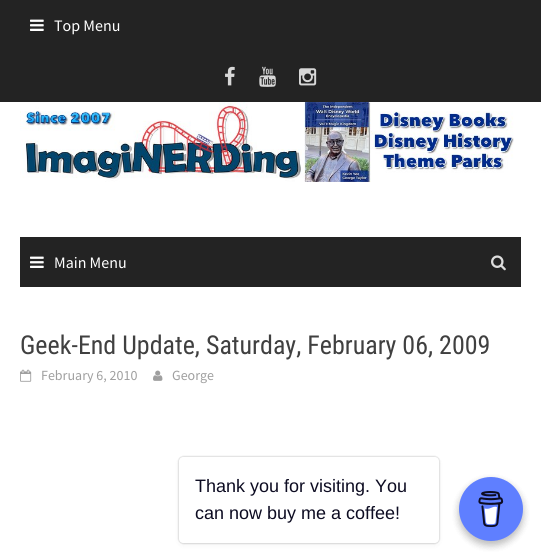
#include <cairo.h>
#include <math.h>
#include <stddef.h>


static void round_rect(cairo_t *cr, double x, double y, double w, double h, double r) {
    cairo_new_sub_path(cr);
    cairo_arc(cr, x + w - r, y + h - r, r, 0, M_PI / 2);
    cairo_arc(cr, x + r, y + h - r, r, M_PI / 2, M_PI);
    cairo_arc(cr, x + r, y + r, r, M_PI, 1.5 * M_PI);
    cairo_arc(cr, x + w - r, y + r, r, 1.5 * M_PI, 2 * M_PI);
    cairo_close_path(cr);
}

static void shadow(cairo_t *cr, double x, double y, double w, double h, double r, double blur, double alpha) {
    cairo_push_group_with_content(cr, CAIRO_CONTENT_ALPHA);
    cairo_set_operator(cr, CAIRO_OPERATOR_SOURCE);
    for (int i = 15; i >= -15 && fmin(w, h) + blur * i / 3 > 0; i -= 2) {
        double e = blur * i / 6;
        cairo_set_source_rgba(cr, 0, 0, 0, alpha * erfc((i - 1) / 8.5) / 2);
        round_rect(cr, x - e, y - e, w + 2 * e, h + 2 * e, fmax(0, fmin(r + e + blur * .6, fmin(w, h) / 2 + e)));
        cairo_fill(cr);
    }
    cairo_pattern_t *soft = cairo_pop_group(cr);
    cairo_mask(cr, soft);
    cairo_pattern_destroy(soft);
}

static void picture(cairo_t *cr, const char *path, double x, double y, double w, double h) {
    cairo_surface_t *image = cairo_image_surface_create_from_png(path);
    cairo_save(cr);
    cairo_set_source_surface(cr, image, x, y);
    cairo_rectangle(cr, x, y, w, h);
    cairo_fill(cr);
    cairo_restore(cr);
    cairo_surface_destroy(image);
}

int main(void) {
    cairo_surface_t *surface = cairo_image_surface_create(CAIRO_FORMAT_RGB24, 541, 559);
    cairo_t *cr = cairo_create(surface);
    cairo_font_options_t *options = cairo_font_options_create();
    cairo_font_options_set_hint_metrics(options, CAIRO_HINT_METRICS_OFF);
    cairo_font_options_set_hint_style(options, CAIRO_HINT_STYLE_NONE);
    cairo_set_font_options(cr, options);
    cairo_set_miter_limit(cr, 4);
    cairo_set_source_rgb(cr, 1, 1, 1);
    cairo_paint(cr);
    cairo_set_source_rgb(cr, 0.137, 0.137, 0.137);
    cairo_rectangle(cr, 0, 0, 541, 102);
    cairo_fill(cr);
    picture(cr, "img1.png", 30, 19, 14, 12);
    cairo_select_font_face(cr, "Source Sans Pro", CAIRO_FONT_SLANT_NORMAL, CAIRO_FONT_WEIGHT_NORMAL);
    cairo_set_font_size(cr, 16);
    cairo_set_source_rgb(cr, 1, 1, 1);
    cairo_move_to(cr, 54, 31);
    cairo_show_text(cr, "Top Menu");
    picture(cr, "img2.png", 225, 66, 10, 20);
    picture(cr, "img3.png", 259, 66, 17, 21);
    picture(cr, "img4.png", 299, 68, 18, 18);
    picture(cr, "img5.png", 20, 102, 494, 80);
    cairo_set_source_rgb(cr, 0.137, 0.137, 0.137);
    cairo_rectangle(cr, 20, 237, 501, 50);
    cairo_fill(cr);
    picture(cr, "img1.png", 30, 256, 14, 12);
    cairo_set_source_rgb(cr, 1, 1, 1);
    cairo_move_to(cr, 54, 268);
    cairo_show_text(cr, "Main Menu");
    picture(cr, "img6.png", 491, 255, 15, 16);
    cairo_select_font_face(cr, "Roboto Condensed", CAIRO_FONT_SLANT_NORMAL, CAIRO_FONT_WEIGHT_NORMAL);
    cairo_set_font_size(cr, 26);
    cairo_set_source_rgb(cr, 0.251, 0.251, 0.251);
    cairo_move_to(cr, 20, 354);
    cairo_show_text(cr, "Geek-End Update, Saturday, February 06, 2009");
    picture(cr, "img7.png", 20, 369, 12, 13);
    cairo_select_font_face(cr, "Source Sans Pro", CAIRO_FONT_SLANT_NORMAL, CAIRO_FONT_WEIGHT_NORMAL);
    cairo_set_font_size(cr, 14);
    cairo_set_source_rgb(cr, 0.624, 0.624, 0.624);
    cairo_move_to(cr, 41, 380);
    cairo_show_text(cr, "February 6, 2010");
    picture(cr, "img8.png", 153, 370, 10, 11);
    cairo_move_to(cr, 172, 380);
    cairo_show_text(cr, "George");
    cairo_set_source_rgb(cr, 0, 0, 0);
    shadow(cr, 179, 457, 260, 86, 4, 1, 0.15);
    shadow(cr, 179, 459, 260, 86, 4, 2.5, 0.05);
    shadow(cr, 459, 481, 64, 64, 32, 4, 0.15);
    shadow(cr, 179, 457, 260, 86, 4, 1, 0.15);
    cairo_set_source_rgb(cr, 1, 1, 1);
    round_rect(cr, 179, 457, 260, 86, 4);
    cairo_fill(cr);
    cairo_select_font_face(cr, "Liberation Sans", CAIRO_FONT_SLANT_NORMAL, CAIRO_FONT_WEIGHT_NORMAL);
    cairo_set_font_size(cr, 18);
    cairo_set_source_rgb(cr, 0.051, 0.047, 0.133);
    cairo_move_to(cr, 195, 492);
    cairo_show_text(cr, "Thank you for visiting. You");
    cairo_move_to(cr, 195, 519);
    cairo_show_text(cr, "can now buy me a coffee!");
    cairo_set_source_rgb(cr, 0, 0, 0);
    shadow(cr, 459, 481, 64, 64, 32, 4, 0.15);
    cairo_set_source_rgb(cr, 0.373, 0.498, 1);
    cairo_arc(cr, 491, 509, 32, 0, 2 * M_PI);
    cairo_fill(cr);
    picture(cr, "img9.png", 478, 491, 26, 36);
    cairo_surface_write_to_png(surface, "page.png");
    cairo_font_options_destroy(options);
    cairo_destroy(cr);
    cairo_surface_destroy(surface);
    return 0;
}
